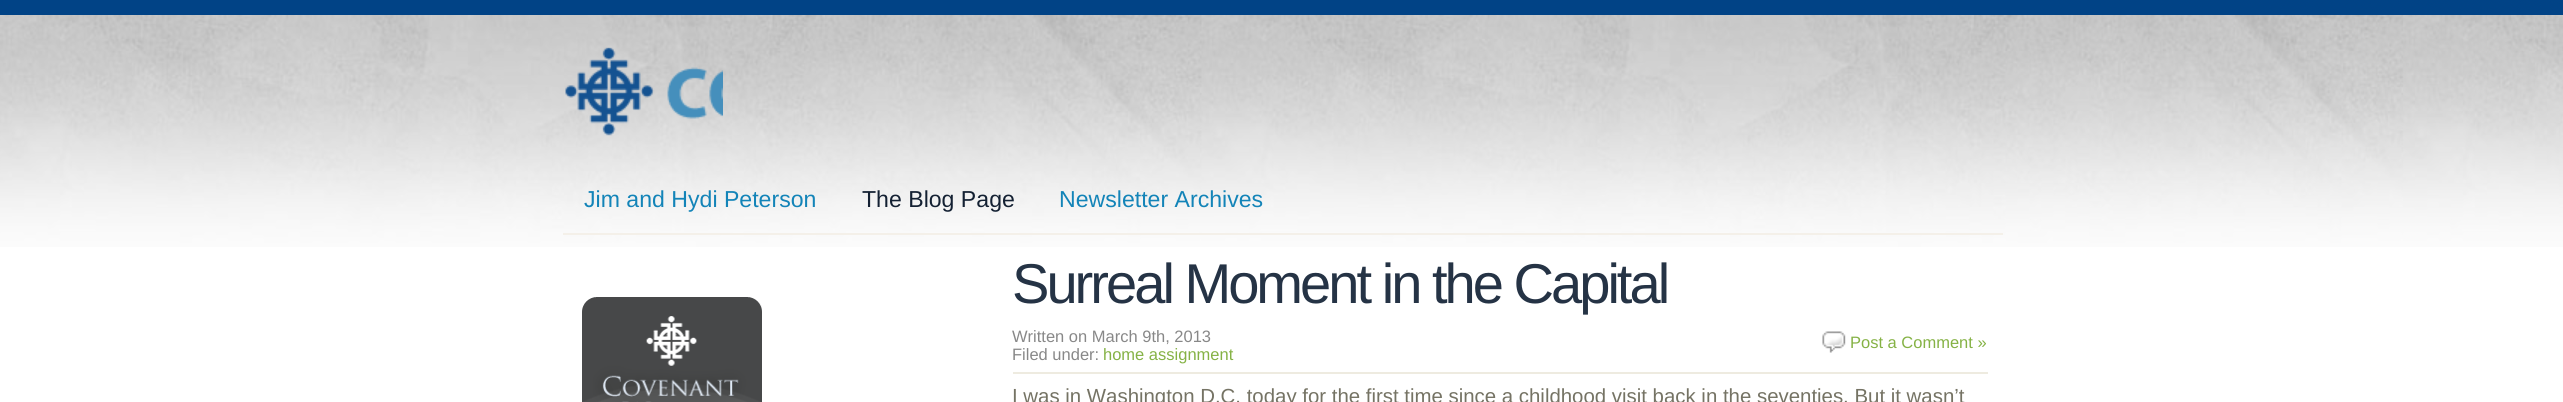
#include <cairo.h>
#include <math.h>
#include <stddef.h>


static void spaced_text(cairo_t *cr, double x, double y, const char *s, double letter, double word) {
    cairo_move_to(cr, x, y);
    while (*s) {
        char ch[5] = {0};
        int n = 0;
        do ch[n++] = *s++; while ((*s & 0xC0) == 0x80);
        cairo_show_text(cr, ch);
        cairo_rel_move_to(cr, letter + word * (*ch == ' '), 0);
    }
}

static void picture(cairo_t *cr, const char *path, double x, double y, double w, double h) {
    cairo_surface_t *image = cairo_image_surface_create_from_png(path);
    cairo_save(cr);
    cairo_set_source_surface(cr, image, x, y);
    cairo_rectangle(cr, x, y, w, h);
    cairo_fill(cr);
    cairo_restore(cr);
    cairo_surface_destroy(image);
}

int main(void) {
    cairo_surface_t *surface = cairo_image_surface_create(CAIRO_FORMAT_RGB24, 2563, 402);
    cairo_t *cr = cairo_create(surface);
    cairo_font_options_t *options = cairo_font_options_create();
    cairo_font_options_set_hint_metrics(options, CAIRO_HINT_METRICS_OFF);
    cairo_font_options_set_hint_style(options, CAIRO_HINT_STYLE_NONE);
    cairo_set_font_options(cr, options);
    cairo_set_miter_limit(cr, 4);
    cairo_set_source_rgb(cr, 1, 1, 1);
    cairo_paint(cr);
    picture(cr, "img1.png", 0, 15, 2563, 232);
    cairo_set_source_rgb(cr, 0.004, 0.263, 0.525);
    cairo_rectangle(cr, 0, 0, 2563, 15);
    cairo_fill(cr);
    picture(cr, "img2.png", 565, 47, 158, 89);
    cairo_set_source_rgb(cr, 0.957, 0.941, 0.914);
    cairo_rectangle(cr, 563, 233, 1440, 2);
    cairo_fill(cr);
    cairo_select_font_face(cr, "Liberation Sans", CAIRO_FONT_SLANT_NORMAL, CAIRO_FONT_WEIGHT_NORMAL);
    cairo_set_font_size(cr, 23.1);
    cairo_set_source_rgb(cr, 0.075, 0.518, 0.722);
    cairo_move_to(cr, 584, 207);
    cairo_show_text(cr, "Jim and Hydi Peterson");
    cairo_set_source_rgb(cr, 0.082, 0.129, 0.2);
    cairo_move_to(cr, 862, 207);
    cairo_show_text(cr, "The Blog Page");
    cairo_set_source_rgb(cr, 0.075, 0.518, 0.722);
    cairo_move_to(cr, 1059, 207);
    cairo_show_text(cr, "Newsletter Archives");
    picture(cr, "img3.png", 582, 297, 180, 105);
    cairo_set_font_size(cr, 56.1);
    cairo_set_source_rgb(cr, 0.145, 0.2, 0.271);
    spaced_text(cr, 1012, 303, "Surreal Moment in the Capital", -3, 0);
    cairo_set_source_rgb(cr, 0.933, 0.918, 0.878);
    cairo_rectangle(cr, 1013, 372, 975, 2);
    cairo_fill(cr);
    cairo_set_font_size(cr, 16.5);
    cairo_set_source_rgb(cr, 0.533, 0.533, 0.533);
    cairo_move_to(cr, 1012, 342);
    cairo_show_text(cr, "Written on March 9th, 2013");
    picture(cr, "img4.png", 1822, 331, 24, 22);
    cairo_set_source_rgb(cr, 0.522, 0.698, 0.271);
    cairo_move_to(cr, 1850, 348);
    cairo_show_text(cr, "Post a Comment »");
    cairo_set_source_rgb(cr, 0.533, 0.533, 0.533);
    cairo_move_to(cr, 1012, 360);
    cairo_show_text(cr, "Filed under:");
    cairo_set_source_rgb(cr, 0.522, 0.698, 0.271);
    cairo_move_to(cr, 1103, 360);
    cairo_show_text(cr, "home assignment");
    cairo_set_font_size(cr, 20.4);
    cairo_set_source_rgb(cr, 0.459, 0.451, 0.392);
    cairo_move_to(cr, 1012, 403);
    cairo_show_text(cr, "I was in Washington D.C. today for the first time since a childhood visit back in the seventies. But it wasn’t");
    cairo_surface_write_to_png(surface, "page.png");
    cairo_font_options_destroy(options);
    cairo_destroy(cr);
    cairo_surface_destroy(surface);
    return 0;
}
